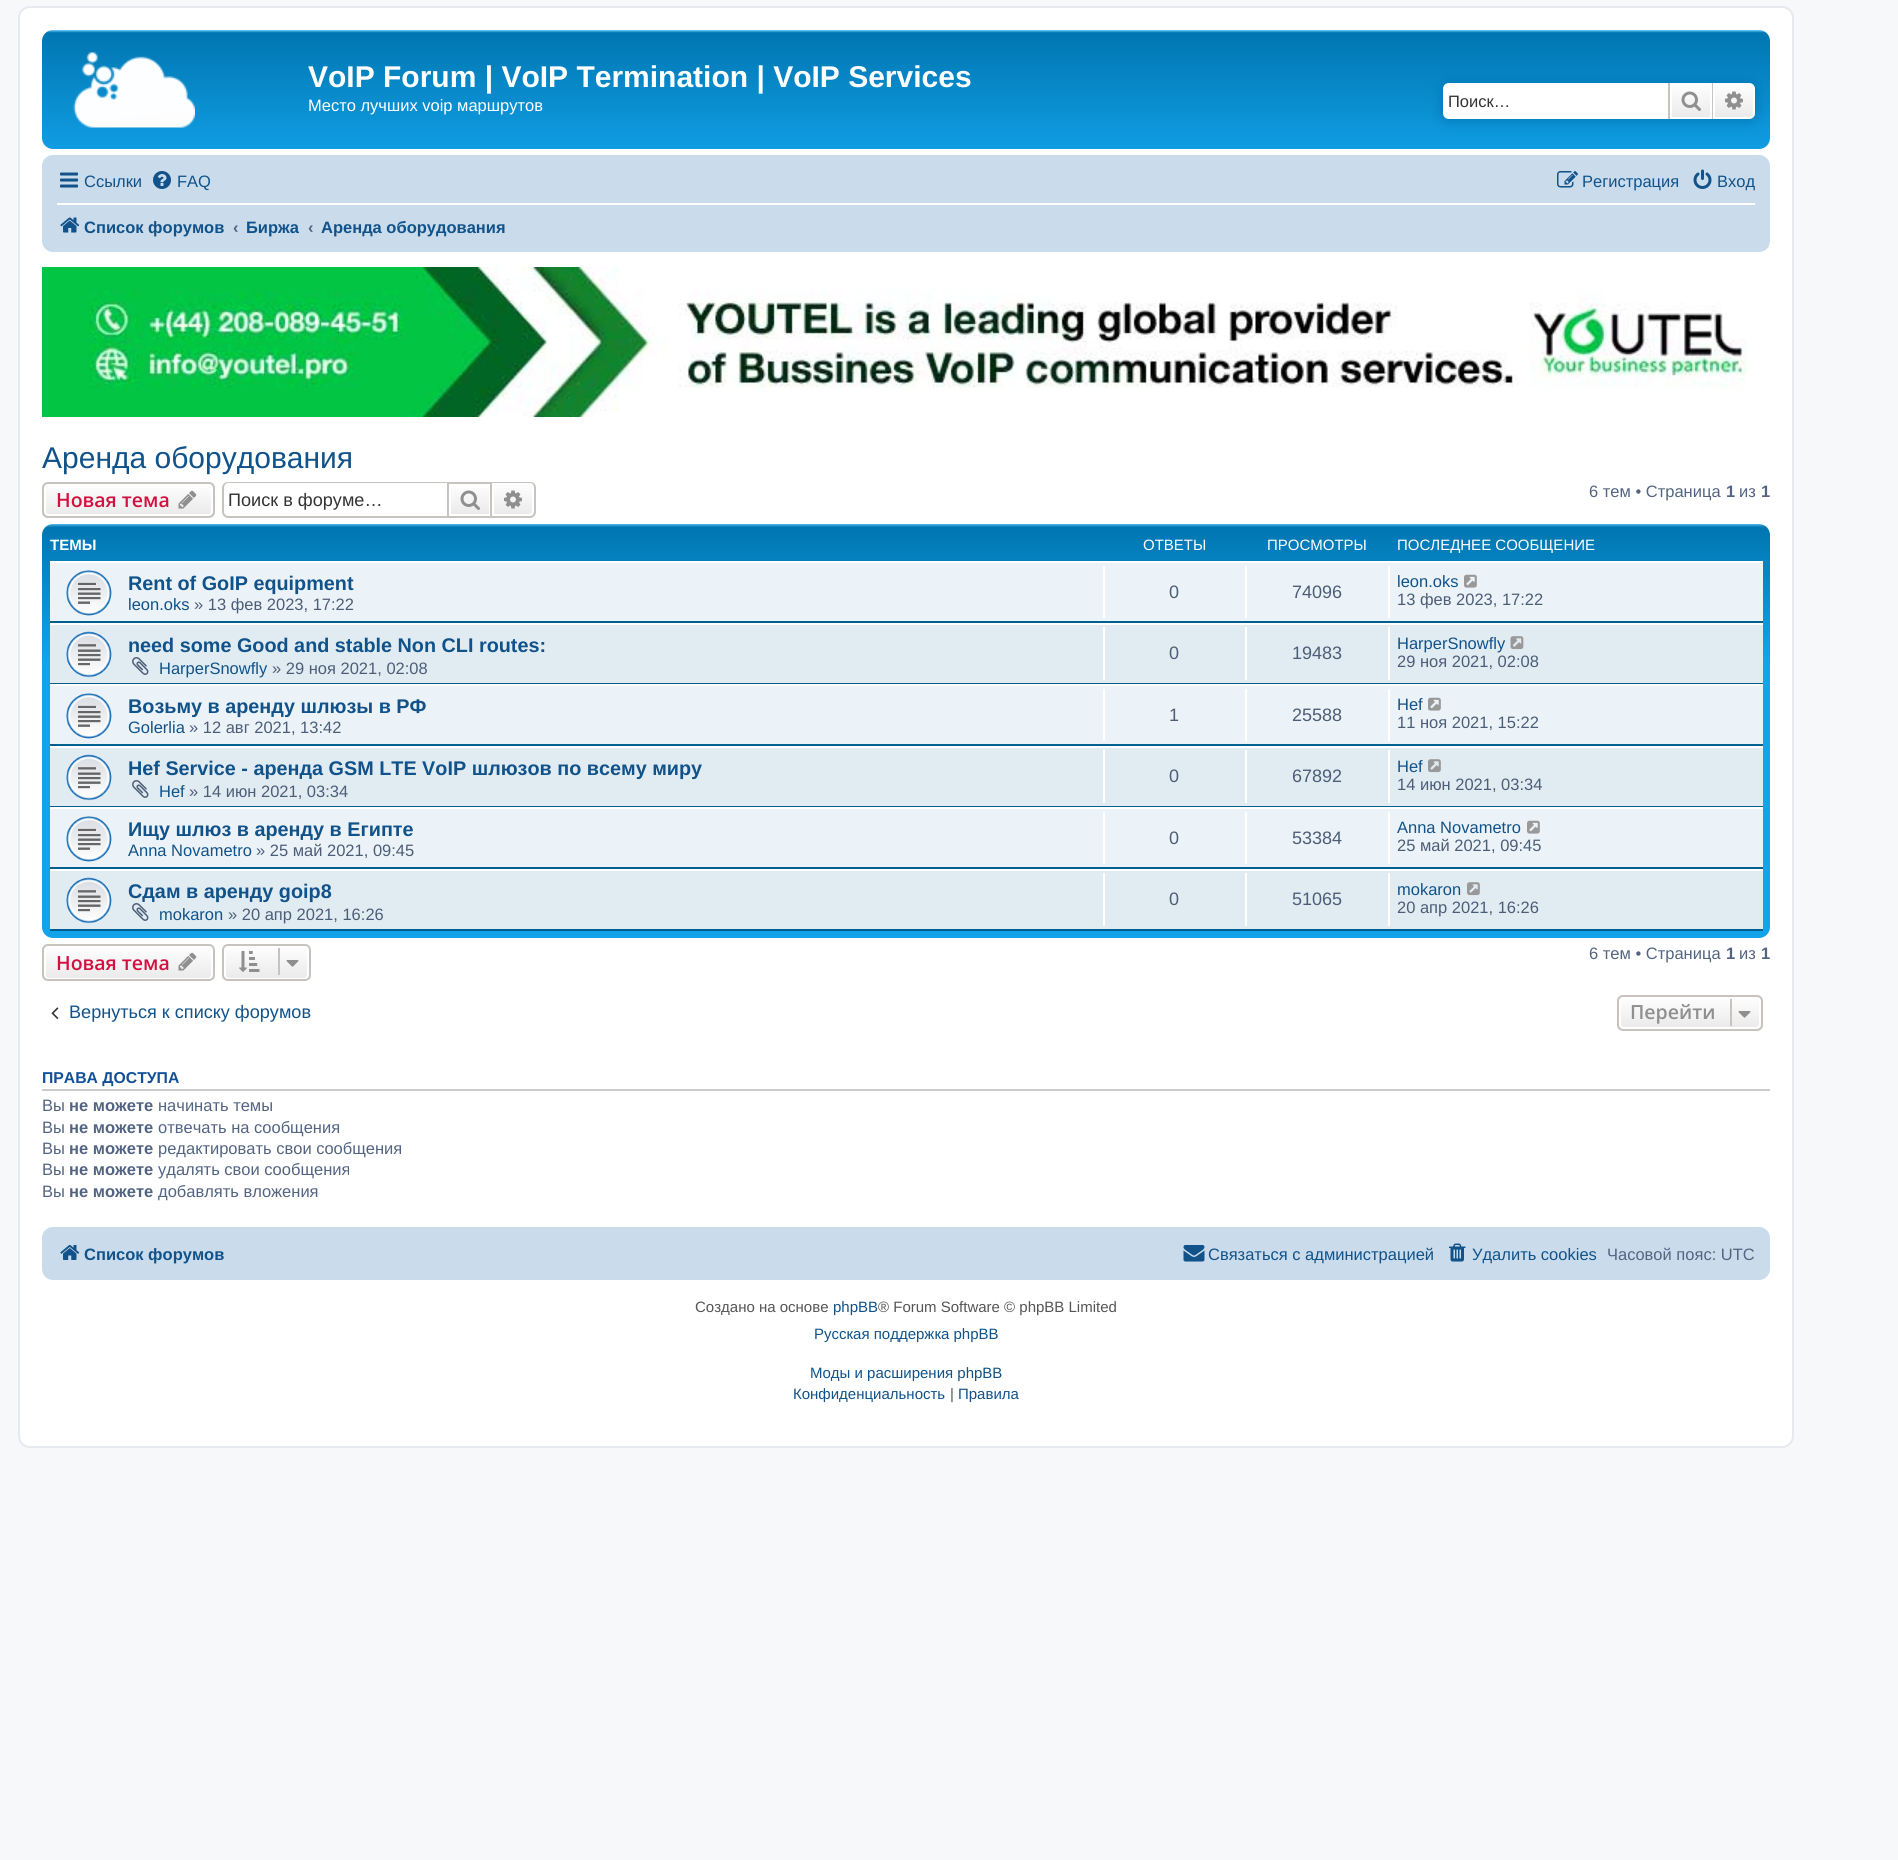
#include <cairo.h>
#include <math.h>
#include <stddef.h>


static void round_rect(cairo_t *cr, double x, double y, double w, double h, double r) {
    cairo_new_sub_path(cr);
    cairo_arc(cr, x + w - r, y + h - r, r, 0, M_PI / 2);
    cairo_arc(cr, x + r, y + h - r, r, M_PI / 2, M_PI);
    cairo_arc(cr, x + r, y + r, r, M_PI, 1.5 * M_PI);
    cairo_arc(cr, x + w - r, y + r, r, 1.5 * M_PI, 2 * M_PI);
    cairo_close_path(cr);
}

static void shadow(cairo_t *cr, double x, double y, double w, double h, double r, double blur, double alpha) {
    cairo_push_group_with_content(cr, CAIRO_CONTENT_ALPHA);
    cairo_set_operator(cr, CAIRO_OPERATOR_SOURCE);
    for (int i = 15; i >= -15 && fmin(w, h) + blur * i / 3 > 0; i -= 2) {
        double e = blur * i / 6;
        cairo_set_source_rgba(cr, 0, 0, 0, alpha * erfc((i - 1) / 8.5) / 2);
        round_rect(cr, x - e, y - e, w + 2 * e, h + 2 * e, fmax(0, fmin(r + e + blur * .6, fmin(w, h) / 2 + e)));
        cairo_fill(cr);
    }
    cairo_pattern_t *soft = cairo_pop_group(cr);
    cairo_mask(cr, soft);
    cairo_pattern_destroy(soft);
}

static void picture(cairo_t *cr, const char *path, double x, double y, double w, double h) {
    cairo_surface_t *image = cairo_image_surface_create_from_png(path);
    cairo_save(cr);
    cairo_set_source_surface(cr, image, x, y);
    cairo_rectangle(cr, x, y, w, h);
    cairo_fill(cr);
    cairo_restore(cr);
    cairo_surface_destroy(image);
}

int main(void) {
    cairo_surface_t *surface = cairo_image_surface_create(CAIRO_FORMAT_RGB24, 1898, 1860);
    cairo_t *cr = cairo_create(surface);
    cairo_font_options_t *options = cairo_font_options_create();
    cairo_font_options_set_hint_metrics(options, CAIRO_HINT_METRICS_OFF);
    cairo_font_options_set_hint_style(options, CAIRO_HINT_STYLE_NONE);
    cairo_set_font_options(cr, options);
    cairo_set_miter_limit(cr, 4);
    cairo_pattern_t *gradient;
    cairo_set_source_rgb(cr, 0.961, 0.969, 0.98);
    cairo_paint(cr);
    cairo_set_source_rgb(cr, 1, 1, 1);
    round_rect(cr, 19, 7, 1774, 1440, 11);
    cairo_fill_preserve(cr);
    cairo_set_source_rgb(cr, 0.902, 0.914, 0.929);
    cairo_stroke(cr);
    gradient = cairo_pattern_create_linear(906, 30, 906, 168);
    cairo_pattern_add_color_stop_rgba(gradient, 0, 0.416, 0.808, 1, 1);
    cairo_pattern_add_color_stop_rgba(gradient, 0.02, 0, 0.463, 0.694, 1);
    cairo_pattern_add_color_stop_rgba(gradient, 1, 0.071, 0.639, 0.922, 1);
    cairo_set_source(cr, gradient);
    cairo_pattern_destroy(gradient);
    round_rect(cr, 42, 30, 1728, 119, 11);
    cairo_fill(cr);
    picture(cr, "img1.png", 73, 52, 122, 76);
    cairo_select_font_face(cr, "Liberation Sans", CAIRO_FONT_SLANT_NORMAL, CAIRO_FONT_WEIGHT_BOLD);
    cairo_set_font_size(cr, 30);
    cairo_set_source_rgb(cr, 1, 1, 1);
    cairo_move_to(cr, 308, 87);
    cairo_show_text(cr, "VoIP Forum | VoIP Termination | VoIP Services");
    cairo_select_font_face(cr, "Liberation Sans", CAIRO_FONT_SLANT_NORMAL, CAIRO_FONT_WEIGHT_NORMAL);
    cairo_set_font_size(cr, 16.5);
    cairo_move_to(cr, 308, 111);
    cairo_show_text(cr, "Место лучших voip маршрутов");
    cairo_set_source_rgb(cr, 0, 0.459, 0.69);
    shadow(cr, 1443, 83, 312, 36, 6, 7.5, 1);
    cairo_set_source_rgb(cr, 1, 1, 1);
    cairo_new_path(cr);
    cairo_move_to(cr, 1449, 83);
    cairo_line_to(cr, 1668, 83);
    cairo_line_to(cr, 1668, 119);
    cairo_line_to(cr, 1449, 119);
    cairo_curve_to(cr, 1445.5, 119, 1443, 116.5, 1443, 113);
    cairo_line_to(cr, 1443, 89);
    cairo_curve_to(cr, 1443, 85.5, 1445.5, 83, 1449, 83);
    cairo_close_path(cr);
    cairo_fill(cr);
    cairo_set_source_rgb(cr, 0.2, 0.2, 0.2);
    cairo_move_to(cr, 1448, 107);
    cairo_show_text(cr, "Поиск…");
    gradient = cairo_pattern_create_linear(1691, 83, 1691, 119);
    cairo_pattern_add_color_stop_rgba(gradient, 0, 1, 1, 1, 1);
    cairo_pattern_add_color_stop_rgba(gradient, 1, 0.914, 0.914, 0.914, 1);
    cairo_set_source(cr, gradient);
    cairo_pattern_destroy(gradient);
    cairo_rectangle(cr, 1672, 85, 38, 32);
    cairo_fill(cr);
    cairo_rectangle(cr, 1671, 84, 40, 34);
    cairo_set_source_rgb(cr, 1, 1, 1);
    cairo_stroke(cr);
    cairo_set_source_rgb(cr, 0.78, 0.765, 0.749);
    cairo_rectangle(cr, 1712, 83, 1, 36);
    cairo_fill(cr);
    cairo_rectangle(cr, 1668, 83, 2, 36);
    cairo_fill(cr);
    picture(cr, "img2.png", 1681, 91, 20, 20);
    gradient = cairo_pattern_create_linear(1734, 83, 1734, 119);
    cairo_pattern_add_color_stop_rgba(gradient, 0, 1, 1, 1, 1);
    cairo_pattern_add_color_stop_rgba(gradient, 1, 0.914, 0.914, 0.914, 1);
    cairo_set_source(cr, gradient);
    cairo_pattern_destroy(gradient);
    cairo_new_path(cr);
    cairo_move_to(cr, 1714, 84);
    cairo_line_to(cr, 1749, 84);
    cairo_curve_to(cr, 1752, 84, 1754, 86, 1754, 89);
    cairo_line_to(cr, 1754, 113);
    cairo_curve_to(cr, 1754, 116, 1752, 118, 1749, 118);
    cairo_line_to(cr, 1714, 118);
    cairo_close_path(cr);
    cairo_fill_preserve(cr);
    cairo_set_source_rgb(cr, 1, 1, 1);
    cairo_stroke(cr);
    picture(cr, "img3.png", 1725, 91, 18, 19);
    cairo_set_source_rgb(cr, 0.792, 0.863, 0.922);
    round_rect(cr, 42, 155, 1728, 97, 11);
    cairo_fill(cr);
    picture(cr, "img4.png", 60, 172, 18, 16);
    cairo_set_source_rgb(cr, 0.063, 0.322, 0.537);
    cairo_move_to(cr, 84, 187);
    cairo_show_text(cr, "Ссылки");
    picture(cr, "img5.png", 153, 171, 18, 18);
    cairo_move_to(cr, 177, 187);
    cairo_show_text(cr, "FAQ");
    picture(cr, "img6.png", 1557, 171, 21, 17);
    cairo_move_to(cr, 1582, 187);
    cairo_show_text(cr, "Регистрация");
    picture(cr, "img7.png", 1693, 169, 19, 20);
    cairo_move_to(cr, 1717, 187);
    cairo_show_text(cr, "Вход");
    cairo_set_source_rgb(cr, 1, 1, 1);
    cairo_rectangle(cr, 57, 203, 1698, 2);
    cairo_fill(cr);
    picture(cr, "img8.png", 60, 217, 20, 16);
    cairo_select_font_face(cr, "Liberation Sans", CAIRO_FONT_SLANT_NORMAL, CAIRO_FONT_WEIGHT_BOLD);
    cairo_set_source_rgb(cr, 0.063, 0.322, 0.537);
    cairo_move_to(cr, 84, 233);
    cairo_show_text(cr, "Список форумов");
    cairo_set_source_rgb(cr, 0.325, 0.392, 0.51);
    cairo_move_to(cr, 233, 233);
    cairo_show_text(cr, "‹");
    cairo_set_source_rgb(cr, 0.063, 0.322, 0.537);
    cairo_move_to(cr, 246, 233);
    cairo_show_text(cr, "Биржа");
    cairo_set_source_rgb(cr, 0.325, 0.392, 0.51);
    cairo_move_to(cr, 308, 233);
    cairo_show_text(cr, "‹");
    cairo_set_source_rgb(cr, 0.063, 0.322, 0.537);
    cairo_move_to(cr, 321, 233);
    cairo_show_text(cr, "Аренда оборудования");
    picture(cr, "img9.png", 42, 267, 1705, 150);
    cairo_select_font_face(cr, "Liberation Sans", CAIRO_FONT_SLANT_NORMAL, CAIRO_FONT_WEIGHT_NORMAL);
    cairo_set_font_size(cr, 30);
    cairo_move_to(cr, 42, 468);
    cairo_show_text(cr, "Аренда оборудования");
    cairo_save(cr);
    round_rect(cr, 42, 482, 173, 36, 6);
    cairo_clip(cr);
    gradient = cairo_pattern_create_linear(128, 483, 128, 516);
    cairo_pattern_add_color_stop_rgba(gradient, 0, 1, 1, 1, 1);
    cairo_pattern_add_color_stop_rgba(gradient, 1, 0.914, 0.914, 0.914, 1);
    cairo_set_source(cr, gradient);
    cairo_pattern_destroy(gradient);
    cairo_rectangle(cr, 42, 483, 173, 33);
    cairo_fill(cr);
    cairo_restore(cr);
    round_rect(cr, 45, 484, 167, 31, 4);
    cairo_set_source_rgb(cr, 1, 1, 1);
    cairo_stroke(cr);
    round_rect(cr, 43, 483, 171, 34, 5);
    cairo_set_source_rgb(cr, 0.78, 0.765, 0.749);
    cairo_stroke(cr);
    cairo_select_font_face(cr, "Open Sans SemiBold", CAIRO_FONT_SLANT_NORMAL, CAIRO_FONT_WEIGHT_NORMAL);
    cairo_set_font_size(cr, 19.5);
    cairo_set_source_rgb(cr, 0.827, 0.067, 0.255);
    cairo_move_to(cr, 56, 507);
    cairo_show_text(cr, "Новая тема");
    picture(cr, "img10.png", 178, 490, 19, 19);
    cairo_set_source_rgb(cr, 0.78, 0.765, 0.749);
    cairo_set_fill_rule(cr, CAIRO_FILL_RULE_EVEN_ODD);
    cairo_new_path(cr);
    cairo_move_to(cr, 228, 482);
    cairo_line_to(cr, 447, 482);
    cairo_line_to(cr, 447, 518);
    cairo_line_to(cr, 228, 518);
    cairo_curve_to(cr, 225, 518, 222, 515, 222, 512);
    cairo_line_to(cr, 222, 488);
    cairo_curve_to(cr, 222, 484, 225, 482, 228, 482);
    cairo_close_path(cr);
    cairo_move_to(cr, 228, 483);
    cairo_line_to(cr, 447, 483);
    cairo_line_to(cr, 447, 516);
    cairo_line_to(cr, 228, 516);
    cairo_curve_to(cr, 226, 516, 224, 514, 224, 512);
    cairo_line_to(cr, 224, 488);
    cairo_curve_to(cr, 224, 485, 226, 483, 228, 483);
    cairo_close_path(cr);
    cairo_fill(cr);
    cairo_select_font_face(cr, "Liberation Sans", CAIRO_FONT_SLANT_NORMAL, CAIRO_FONT_WEIGHT_NORMAL);
    cairo_set_font_size(cr, 18.1);
    cairo_set_source_rgb(cr, 0.2, 0.2, 0.2);
    cairo_move_to(cr, 228, 506);
    cairo_show_text(cr, "Поиск в форуме…");
    gradient = cairo_pattern_create_linear(470, 483, 470, 516);
    cairo_pattern_add_color_stop_rgba(gradient, 0, 1, 1, 1, 1);
    cairo_pattern_add_color_stop_rgba(gradient, 1, 0.914, 0.914, 0.914, 1);
    cairo_set_source(cr, gradient);
    cairo_pattern_destroy(gradient);
    cairo_rectangle(cr, 451, 487, 38, 27);
    cairo_fill(cr);
    cairo_rectangle(cr, 448, 483, 43, 34);
    cairo_set_source_rgb(cr, 0.78, 0.765, 0.749);
    cairo_stroke(cr);
    picture(cr, "img11.png", 460, 490, 20, 20);
    gradient = cairo_pattern_create_linear(513, 483, 513, 516);
    cairo_pattern_add_color_stop_rgba(gradient, 0, 1, 1, 1, 1);
    cairo_pattern_add_color_stop_rgba(gradient, 1, 0.914, 0.914, 0.914, 1);
    cairo_set_source(cr, gradient);
    cairo_pattern_destroy(gradient);
    cairo_new_path(cr);
    cairo_move_to(cr, 493, 484);
    cairo_line_to(cr, 529, 484);
    cairo_curve_to(cr, 531, 484, 533, 486, 533, 488);
    cairo_line_to(cr, 533, 511);
    cairo_curve_to(cr, 533, 513, 531, 515, 529, 515);
    cairo_line_to(cr, 493, 515);
    cairo_close_path(cr);
    cairo_fill_preserve(cr);
    cairo_set_source_rgb(cr, 1, 1, 1);
    cairo_stroke(cr);
    cairo_set_source_rgb(cr, 0.78, 0.765, 0.749);
    cairo_new_path(cr);
    cairo_move_to(cr, 492, 482);
    cairo_line_to(cr, 530, 482);
    cairo_curve_to(cr, 533, 482, 536, 484, 536, 488);
    cairo_line_to(cr, 536, 512);
    cairo_curve_to(cr, 536, 515, 533, 518, 530, 518);
    cairo_line_to(cr, 492, 518);
    cairo_close_path(cr);
    cairo_move_to(cr, 492, 483);
    cairo_line_to(cr, 530, 483);
    cairo_curve_to(cr, 532, 483, 534, 485, 534, 488);
    cairo_line_to(cr, 534, 512);
    cairo_curve_to(cr, 534, 514, 532, 516, 530, 516);
    cairo_line_to(cr, 492, 516);
    cairo_close_path(cr);
    cairo_fill(cr);
    picture(cr, "img12.png", 504, 490, 18, 19);
    cairo_set_font_size(cr, 16.5);
    cairo_set_source_rgb(cr, 0.325, 0.392, 0.51);
    cairo_move_to(cr, 1589, 497);
    cairo_show_text(cr, "6 тем • Страница");
    cairo_select_font_face(cr, "Liberation Sans", CAIRO_FONT_SLANT_NORMAL, CAIRO_FONT_WEIGHT_BOLD);
    cairo_move_to(cr, 1726, 497);
    cairo_show_text(cr, "1");
    cairo_select_font_face(cr, "Liberation Sans", CAIRO_FONT_SLANT_NORMAL, CAIRO_FONT_WEIGHT_NORMAL);
    cairo_move_to(cr, 1739, 497);
    cairo_show_text(cr, "из");
    cairo_select_font_face(cr, "Liberation Sans", CAIRO_FONT_SLANT_NORMAL, CAIRO_FONT_WEIGHT_BOLD);
    cairo_move_to(cr, 1761, 497);
    cairo_show_text(cr, "1");
    gradient = cairo_pattern_create_linear(906, 523, 906, 938);
    cairo_pattern_add_color_stop_rgba(gradient, 0, 0.416, 0.808, 1, 1);
    cairo_pattern_add_color_stop_rgba(gradient, 0.01, 0, 0.463, 0.694, 1);
    cairo_pattern_add_color_stop_rgba(gradient, 0.33, 0.071, 0.639, 0.922, 1);
    cairo_pattern_add_color_stop_rgba(gradient, 1, 0.071, 0.639, 0.922, 1);
    cairo_set_source(cr, gradient);
    cairo_pattern_destroy(gradient);
    round_rect(cr, 42, 524, 1728, 414, 11);
    cairo_fill(cr);
    cairo_save(cr);
    cairo_set_fill_rule(cr, CAIRO_FILL_RULE_WINDING);
    cairo_rectangle(cr, 50, 531, 1713, 30);
    cairo_clip(cr);
    cairo_set_font_size(cr, 15);
    cairo_set_source_rgb(cr, 1, 1, 1);
    cairo_move_to(cr, 50, 550);
    cairo_show_text(cr, "ТЕМЫ");
    cairo_restore(cr);
    cairo_select_font_face(cr, "Liberation Sans", CAIRO_FONT_SLANT_NORMAL, CAIRO_FONT_WEIGHT_NORMAL);
    cairo_set_font_size(cr, 15);
    cairo_set_source_rgb(cr, 1, 1, 1);
    cairo_move_to(cr, 1143, 550);
    cairo_show_text(cr, "ОТВЕТЫ");
    cairo_move_to(cr, 1267, 550);
    cairo_show_text(cr, "ПРОСМОТРЫ");
    cairo_move_to(cr, 1397, 550);
    cairo_show_text(cr, "ПОСЛЕДНЕЕ СООБЩЕНИЕ");
    cairo_set_source_rgb(cr, 0.925, 0.953, 0.969);
    cairo_rectangle(cr, 50, 563, 1713, 58);
    cairo_fill(cr);
    cairo_set_source_rgb(cr, 1, 1, 1);
    cairo_rectangle(cr, 50, 561, 1713, 2);
    cairo_fill(cr);
    cairo_set_source_rgb(cr, 0, 0.376, 0.561);
    cairo_rectangle(cr, 50, 621, 1713, 2);
    cairo_fill(cr);
    picture(cr, "img13.png", 66, 570, 46, 46);
    cairo_select_font_face(cr, "Liberation Sans", CAIRO_FONT_SLANT_NORMAL, CAIRO_FONT_WEIGHT_BOLD);
    cairo_set_font_size(cr, 19.8);
    cairo_set_source_rgb(cr, 0.063, 0.322, 0.537);
    cairo_move_to(cr, 128, 590);
    cairo_show_text(cr, "Rent of GoIP equipment");
    cairo_select_font_face(cr, "Liberation Sans", CAIRO_FONT_SLANT_NORMAL, CAIRO_FONT_WEIGHT_NORMAL);
    cairo_set_font_size(cr, 16.5);
    cairo_move_to(cr, 128, 610);
    cairo_show_text(cr, "leon.oks");
    cairo_set_source_rgb(cr, 0.298, 0.365, 0.467);
    cairo_move_to(cr, 194, 610);
    cairo_show_text(cr, "» 13 фев 2023, 17:22");
    cairo_set_source_rgb(cr, 1, 1, 1);
    cairo_rectangle(cr, 1103, 566, 2, 52);
    cairo_fill(cr);
    cairo_set_font_size(cr, 18);
    cairo_set_source_rgb(cr, 0.298, 0.365, 0.467);
    cairo_move_to(cr, 1169, 598);
    cairo_show_text(cr, "0");
    cairo_set_source_rgb(cr, 1, 1, 1);
    cairo_rectangle(cr, 1245, 566, 2, 52);
    cairo_fill(cr);
    cairo_set_source_rgb(cr, 0.298, 0.365, 0.467);
    cairo_move_to(cr, 1292, 598);
    cairo_show_text(cr, "74096");
    cairo_set_source_rgb(cr, 1, 1, 1);
    cairo_rectangle(cr, 1388, 566, 2, 52);
    cairo_fill(cr);
    cairo_set_font_size(cr, 16.5);
    cairo_set_source_rgb(cr, 0.063, 0.322, 0.537);
    cairo_move_to(cr, 1397, 587);
    cairo_show_text(cr, "leon.oks");
    picture(cr, "img14.png", 1464, 574, 13, 14);
    cairo_set_source_rgb(cr, 0.298, 0.365, 0.467);
    cairo_move_to(cr, 1397, 605);
    cairo_show_text(cr, "13 фев 2023, 17:22");
    cairo_set_source_rgb(cr, 0.882, 0.922, 0.949);
    cairo_rectangle(cr, 50, 625, 1713, 58);
    cairo_fill(cr);
    cairo_set_source_rgb(cr, 1, 1, 1);
    cairo_rectangle(cr, 50, 623, 1713, 2);
    cairo_fill(cr);
    cairo_set_source_rgb(cr, 0, 0.376, 0.561);
    cairo_rectangle(cr, 50, 683, 1713, 1);
    cairo_fill(cr);
    picture(cr, "img15.png", 66, 631, 46, 47);
    cairo_select_font_face(cr, "Liberation Sans", CAIRO_FONT_SLANT_NORMAL, CAIRO_FONT_WEIGHT_BOLD);
    cairo_set_font_size(cr, 19.8);
    cairo_set_source_rgb(cr, 0.063, 0.322, 0.537);
    cairo_move_to(cr, 128, 652);
    cairo_show_text(cr, "need some Good and stable Non CLI routes:");
    picture(cr, "img16.png", 132, 657, 17, 18);
    cairo_select_font_face(cr, "Liberation Sans", CAIRO_FONT_SLANT_NORMAL, CAIRO_FONT_WEIGHT_NORMAL);
    cairo_set_font_size(cr, 16.5);
    cairo_move_to(cr, 159, 674);
    cairo_show_text(cr, "HarperSnowfly");
    cairo_set_source_rgb(cr, 0.298, 0.365, 0.467);
    cairo_move_to(cr, 272, 674);
    cairo_show_text(cr, "» 29 ноя 2021, 02:08");
    cairo_set_source_rgb(cr, 1, 1, 1);
    cairo_rectangle(cr, 1103, 627, 2, 53);
    cairo_fill(cr);
    cairo_set_font_size(cr, 18);
    cairo_set_source_rgb(cr, 0.298, 0.365, 0.467);
    cairo_move_to(cr, 1169, 659);
    cairo_show_text(cr, "0");
    cairo_set_source_rgb(cr, 1, 1, 1);
    cairo_rectangle(cr, 1245, 627, 2, 53);
    cairo_fill(cr);
    cairo_set_source_rgb(cr, 0.298, 0.365, 0.467);
    cairo_move_to(cr, 1292, 659);
    cairo_show_text(cr, "19483");
    cairo_set_source_rgb(cr, 1, 1, 1);
    cairo_rectangle(cr, 1388, 627, 2, 53);
    cairo_fill(cr);
    cairo_set_font_size(cr, 16.5);
    cairo_set_source_rgb(cr, 0.063, 0.322, 0.537);
    cairo_move_to(cr, 1397, 649);
    cairo_show_text(cr, "HarperSnowfly");
    picture(cr, "img17.png", 1510, 636, 14, 14);
    cairo_set_source_rgb(cr, 0.298, 0.365, 0.467);
    cairo_move_to(cr, 1397, 667);
    cairo_show_text(cr, "29 ноя 2021, 02:08");
    cairo_set_source_rgb(cr, 0.925, 0.953, 0.969);
    cairo_rectangle(cr, 50, 686, 1713, 58);
    cairo_fill(cr);
    cairo_set_source_rgb(cr, 1, 1, 1);
    cairo_rectangle(cr, 50, 684, 1713, 2);
    cairo_fill(cr);
    cairo_set_source_rgb(cr, 0, 0.376, 0.561);
    cairo_rectangle(cr, 50, 744, 1713, 2);
    cairo_fill(cr);
    picture(cr, "img13.png", 66, 693, 46, 46);
    cairo_select_font_face(cr, "Liberation Sans", CAIRO_FONT_SLANT_NORMAL, CAIRO_FONT_WEIGHT_BOLD);
    cairo_set_font_size(cr, 19.8);
    cairo_set_source_rgb(cr, 0.063, 0.322, 0.537);
    cairo_move_to(cr, 128, 713);
    cairo_show_text(cr, "Возьму в аренду шлюзы в РФ");
    cairo_select_font_face(cr, "Liberation Sans", CAIRO_FONT_SLANT_NORMAL, CAIRO_FONT_WEIGHT_NORMAL);
    cairo_set_font_size(cr, 16.5);
    cairo_move_to(cr, 128, 733);
    cairo_show_text(cr, "Golerlia");
    cairo_set_source_rgb(cr, 0.298, 0.365, 0.467);
    cairo_move_to(cr, 189, 733);
    cairo_show_text(cr, "» 12 авг 2021, 13:42");
    cairo_set_source_rgb(cr, 1, 1, 1);
    cairo_rectangle(cr, 1103, 689, 2, 52);
    cairo_fill(cr);
    cairo_set_font_size(cr, 18);
    cairo_set_source_rgb(cr, 0.298, 0.365, 0.467);
    cairo_move_to(cr, 1169, 721);
    cairo_show_text(cr, "1");
    cairo_set_source_rgb(cr, 1, 1, 1);
    cairo_rectangle(cr, 1245, 689, 2, 52);
    cairo_fill(cr);
    cairo_set_source_rgb(cr, 0.298, 0.365, 0.467);
    cairo_move_to(cr, 1292, 721);
    cairo_show_text(cr, "25588");
    cairo_set_source_rgb(cr, 1, 1, 1);
    cairo_rectangle(cr, 1388, 689, 2, 52);
    cairo_fill(cr);
    cairo_set_font_size(cr, 16.5);
    cairo_set_source_rgb(cr, 0.063, 0.322, 0.537);
    cairo_move_to(cr, 1397, 710);
    cairo_show_text(cr, "Hef");
    picture(cr, "img14.png", 1428, 697, 13, 14);
    cairo_set_source_rgb(cr, 0.298, 0.365, 0.467);
    cairo_move_to(cr, 1397, 728);
    cairo_show_text(cr, "11 ноя 2021, 15:22");
    cairo_set_source_rgb(cr, 0.882, 0.922, 0.949);
    cairo_rectangle(cr, 50, 748, 1713, 58);
    cairo_fill(cr);
    cairo_set_source_rgb(cr, 1, 1, 1);
    cairo_rectangle(cr, 50, 746, 1713, 2);
    cairo_fill(cr);
    cairo_set_source_rgb(cr, 0, 0.376, 0.561);
    cairo_rectangle(cr, 50, 806, 1713, 1);
    cairo_fill(cr);
    picture(cr, "img15.png", 66, 754, 46, 47);
    cairo_select_font_face(cr, "Liberation Sans", CAIRO_FONT_SLANT_NORMAL, CAIRO_FONT_WEIGHT_BOLD);
    cairo_set_font_size(cr, 19.8);
    cairo_set_source_rgb(cr, 0.063, 0.322, 0.537);
    cairo_move_to(cr, 128, 775);
    cairo_show_text(cr, "Hef Service - аренда GSM LTE VoIP шлюзов по всему миру");
    picture(cr, "img16.png", 132, 780, 17, 18);
    cairo_select_font_face(cr, "Liberation Sans", CAIRO_FONT_SLANT_NORMAL, CAIRO_FONT_WEIGHT_NORMAL);
    cairo_set_font_size(cr, 16.5);
    cairo_move_to(cr, 159, 797);
    cairo_show_text(cr, "Hef");
    cairo_set_source_rgb(cr, 0.298, 0.365, 0.467);
    cairo_move_to(cr, 189, 797);
    cairo_show_text(cr, "» 14 июн 2021, 03:34");
    cairo_set_source_rgb(cr, 1, 1, 1);
    cairo_rectangle(cr, 1103, 750, 2, 53);
    cairo_fill(cr);
    cairo_set_font_size(cr, 18);
    cairo_set_source_rgb(cr, 0.298, 0.365, 0.467);
    cairo_move_to(cr, 1169, 782);
    cairo_show_text(cr, "0");
    cairo_set_source_rgb(cr, 1, 1, 1);
    cairo_rectangle(cr, 1245, 750, 2, 53);
    cairo_fill(cr);
    cairo_set_source_rgb(cr, 0.298, 0.365, 0.467);
    cairo_move_to(cr, 1292, 782);
    cairo_show_text(cr, "67892");
    cairo_set_source_rgb(cr, 1, 1, 1);
    cairo_rectangle(cr, 1388, 750, 2, 53);
    cairo_fill(cr);
    cairo_set_font_size(cr, 16.5);
    cairo_set_source_rgb(cr, 0.063, 0.322, 0.537);
    cairo_move_to(cr, 1397, 772);
    cairo_show_text(cr, "Hef");
    picture(cr, "img18.png", 1428, 759, 13, 14);
    cairo_set_source_rgb(cr, 0.298, 0.365, 0.467);
    cairo_move_to(cr, 1397, 790);
    cairo_show_text(cr, "14 июн 2021, 03:34");
    cairo_set_source_rgb(cr, 0.925, 0.953, 0.969);
    cairo_rectangle(cr, 50, 809, 1713, 58);
    cairo_fill(cr);
    cairo_set_source_rgb(cr, 1, 1, 1);
    cairo_rectangle(cr, 50, 807, 1713, 2);
    cairo_fill(cr);
    cairo_set_source_rgb(cr, 0, 0.376, 0.561);
    cairo_rectangle(cr, 50, 867, 1713, 2);
    cairo_fill(cr);
    picture(cr, "img13.png", 66, 816, 46, 46);
    cairo_select_font_face(cr, "Liberation Sans", CAIRO_FONT_SLANT_NORMAL, CAIRO_FONT_WEIGHT_BOLD);
    cairo_set_font_size(cr, 19.8);
    cairo_set_source_rgb(cr, 0.063, 0.322, 0.537);
    cairo_move_to(cr, 128, 836);
    cairo_show_text(cr, "Ищу шлюз в аренду в Египте");
    cairo_select_font_face(cr, "Liberation Sans", CAIRO_FONT_SLANT_NORMAL, CAIRO_FONT_WEIGHT_NORMAL);
    cairo_set_font_size(cr, 16.5);
    cairo_move_to(cr, 128, 856);
    cairo_show_text(cr, "Anna Novametro");
    cairo_set_source_rgb(cr, 0.298, 0.365, 0.467);
    cairo_move_to(cr, 256, 856);
    cairo_show_text(cr, "» 25 май 2021, 09:45");
    cairo_set_source_rgb(cr, 1, 1, 1);
    cairo_rectangle(cr, 1103, 812, 2, 52);
    cairo_fill(cr);
    cairo_set_font_size(cr, 18);
    cairo_set_source_rgb(cr, 0.298, 0.365, 0.467);
    cairo_move_to(cr, 1169, 844);
    cairo_show_text(cr, "0");
    cairo_set_source_rgb(cr, 1, 1, 1);
    cairo_rectangle(cr, 1245, 812, 2, 52);
    cairo_fill(cr);
    cairo_set_source_rgb(cr, 0.298, 0.365, 0.467);
    cairo_move_to(cr, 1292, 844);
    cairo_show_text(cr, "53384");
    cairo_set_source_rgb(cr, 1, 1, 1);
    cairo_rectangle(cr, 1388, 812, 2, 52);
    cairo_fill(cr);
    cairo_set_font_size(cr, 16.5);
    cairo_set_source_rgb(cr, 0.063, 0.322, 0.537);
    cairo_move_to(cr, 1397, 833);
    cairo_show_text(cr, "Anna Novametro");
    picture(cr, "img14.png", 1527, 820, 13, 14);
    cairo_set_source_rgb(cr, 0.298, 0.365, 0.467);
    cairo_move_to(cr, 1397, 851);
    cairo_show_text(cr, "25 май 2021, 09:45");
    cairo_set_source_rgb(cr, 0.882, 0.922, 0.949);
    cairo_rectangle(cr, 50, 871, 1713, 58);
    cairo_fill(cr);
    cairo_set_source_rgb(cr, 1, 1, 1);
    cairo_rectangle(cr, 50, 869, 1713, 2);
    cairo_fill(cr);
    cairo_set_source_rgb(cr, 0, 0.376, 0.561);
    cairo_rectangle(cr, 50, 929, 1713, 2);
    cairo_fill(cr);
    picture(cr, "img15.png", 66, 877, 46, 47);
    cairo_select_font_face(cr, "Liberation Sans", CAIRO_FONT_SLANT_NORMAL, CAIRO_FONT_WEIGHT_BOLD);
    cairo_set_font_size(cr, 19.8);
    cairo_set_source_rgb(cr, 0.063, 0.322, 0.537);
    cairo_move_to(cr, 128, 898);
    cairo_show_text(cr, "Сдам в аренду goip8");
    picture(cr, "img16.png", 132, 903, 17, 18);
    cairo_select_font_face(cr, "Liberation Sans", CAIRO_FONT_SLANT_NORMAL, CAIRO_FONT_WEIGHT_NORMAL);
    cairo_set_font_size(cr, 16.5);
    cairo_move_to(cr, 159, 920);
    cairo_show_text(cr, "mokaron");
    cairo_set_source_rgb(cr, 0.298, 0.365, 0.467);
    cairo_move_to(cr, 228, 920);
    cairo_show_text(cr, "» 20 апр 2021, 16:26");
    cairo_set_source_rgb(cr, 1, 1, 1);
    cairo_rectangle(cr, 1103, 873, 2, 53);
    cairo_fill(cr);
    cairo_set_font_size(cr, 18);
    cairo_set_source_rgb(cr, 0.298, 0.365, 0.467);
    cairo_move_to(cr, 1169, 905);
    cairo_show_text(cr, "0");
    cairo_set_source_rgb(cr, 1, 1, 1);
    cairo_rectangle(cr, 1245, 873, 2, 53);
    cairo_fill(cr);
    cairo_set_source_rgb(cr, 0.298, 0.365, 0.467);
    cairo_move_to(cr, 1292, 905);
    cairo_show_text(cr, "51065");
    cairo_set_source_rgb(cr, 1, 1, 1);
    cairo_rectangle(cr, 1388, 873, 2, 53);
    cairo_fill(cr);
    cairo_set_font_size(cr, 16.5);
    cairo_set_source_rgb(cr, 0.063, 0.322, 0.537);
    cairo_move_to(cr, 1397, 895);
    cairo_show_text(cr, "mokaron");
    picture(cr, "img18.png", 1467, 882, 13, 14);
    cairo_set_source_rgb(cr, 0.298, 0.365, 0.467);
    cairo_move_to(cr, 1397, 913);
    cairo_show_text(cr, "20 апр 2021, 16:26");
    cairo_save(cr);
    cairo_set_fill_rule(cr, CAIRO_FILL_RULE_WINDING);
    round_rect(cr, 42, 944, 173, 37, 6);
    cairo_clip(cr);
    gradient = cairo_pattern_create_linear(128, 945, 128, 980);
    cairo_pattern_add_color_stop_rgba(gradient, 0, 1, 1, 1, 1);
    cairo_pattern_add_color_stop_rgba(gradient, 1, 0.914, 0.914, 0.914, 1);
    cairo_set_source(cr, gradient);
    cairo_pattern_destroy(gradient);
    cairo_rectangle(cr, 42, 945, 173, 35);
    cairo_fill(cr);
    cairo_restore(cr);
    round_rect(cr, 45, 946, 167, 33, 4);
    cairo_set_source_rgb(cr, 1, 1, 1);
    cairo_stroke(cr);
    round_rect(cr, 43, 945, 171, 35, 5);
    cairo_set_source_rgb(cr, 0.78, 0.765, 0.749);
    cairo_stroke(cr);
    cairo_select_font_face(cr, "Open Sans SemiBold", CAIRO_FONT_SLANT_NORMAL, CAIRO_FONT_WEIGHT_NORMAL);
    cairo_set_font_size(cr, 19.5);
    cairo_set_source_rgb(cr, 0.827, 0.067, 0.255);
    cairo_move_to(cr, 56, 970);
    cairo_show_text(cr, "Новая тема");
    picture(cr, "img19.png", 178, 952, 19, 19);
    cairo_save(cr);
    cairo_set_fill_rule(cr, CAIRO_FILL_RULE_WINDING);
    round_rect(cr, 222, 944, 89, 37, 6);
    cairo_clip(cr);
    gradient = cairo_pattern_create_linear(266, 945, 266, 980);
    cairo_pattern_add_color_stop_rgba(gradient, 0, 1, 1, 1, 1);
    cairo_pattern_add_color_stop_rgba(gradient, 1, 0.914, 0.914, 0.914, 1);
    cairo_set_source(cr, gradient);
    cairo_pattern_destroy(gradient);
    cairo_rectangle(cr, 222, 945, 89, 35);
    cairo_fill(cr);
    cairo_restore(cr);
    round_rect(cr, 225, 946, 83, 33, 4);
    cairo_set_source_rgb(cr, 1, 1, 1);
    cairo_stroke(cr);
    round_rect(cr, 223, 945, 87, 35, 5);
    cairo_set_source_rgb(cr, 0.78, 0.765, 0.749);
    cairo_stroke(cr);
    picture(cr, "img20.png", 239, 951, 21, 21);
    cairo_rectangle(cr, 278, 948, 2, 27);
    cairo_fill(cr);
    picture(cr, "img21.png", 286, 960, 13, 7);
    cairo_select_font_face(cr, "Liberation Sans", CAIRO_FONT_SLANT_NORMAL, CAIRO_FONT_WEIGHT_NORMAL);
    cairo_set_font_size(cr, 16.5);
    cairo_set_source_rgb(cr, 0.325, 0.392, 0.51);
    cairo_move_to(cr, 1589, 959);
    cairo_show_text(cr, "6 тем • Страница");
    cairo_select_font_face(cr, "Liberation Sans", CAIRO_FONT_SLANT_NORMAL, CAIRO_FONT_WEIGHT_BOLD);
    cairo_move_to(cr, 1726, 959);
    cairo_show_text(cr, "1");
    cairo_select_font_face(cr, "Liberation Sans", CAIRO_FONT_SLANT_NORMAL, CAIRO_FONT_WEIGHT_NORMAL);
    cairo_move_to(cr, 1739, 959);
    cairo_show_text(cr, "из");
    cairo_select_font_face(cr, "Liberation Sans", CAIRO_FONT_SLANT_NORMAL, CAIRO_FONT_WEIGHT_BOLD);
    cairo_move_to(cr, 1761, 959);
    cairo_show_text(cr, "1");
    picture(cr, "img22.png", 51, 1007, 8, 12);
    cairo_select_font_face(cr, "Liberation Sans", CAIRO_FONT_SLANT_NORMAL, CAIRO_FONT_WEIGHT_NORMAL);
    cairo_set_font_size(cr, 18.1);
    cairo_set_source_rgb(cr, 0.063, 0.322, 0.537);
    cairo_move_to(cr, 69, 1018);
    cairo_show_text(cr, "Вернуться к списку форумов");
    cairo_save(cr);
    cairo_set_fill_rule(cr, CAIRO_FILL_RULE_WINDING);
    round_rect(cr, 1617, 995, 146, 36, 6);
    cairo_clip(cr);
    gradient = cairo_pattern_create_linear(1690, 996, 1690, 1029);
    cairo_pattern_add_color_stop_rgba(gradient, 0, 1, 1, 1, 1);
    cairo_pattern_add_color_stop_rgba(gradient, 1, 0.914, 0.914, 0.914, 1);
    cairo_set_source(cr, gradient);
    cairo_pattern_destroy(gradient);
    cairo_rectangle(cr, 1617, 996, 146, 33);
    cairo_fill(cr);
    cairo_restore(cr);
    round_rect(cr, 1620, 997, 140, 31, 4);
    cairo_set_source_rgb(cr, 1, 1, 1);
    cairo_stroke(cr);
    round_rect(cr, 1618, 996, 144, 34, 5);
    cairo_set_source_rgb(cr, 0.78, 0.765, 0.749);
    cairo_stroke(cr);
    cairo_select_font_face(cr, "Open Sans SemiBold", CAIRO_FONT_SLANT_NORMAL, CAIRO_FONT_WEIGHT_NORMAL);
    cairo_set_font_size(cr, 19.5);
    cairo_set_source_rgb(cr, 0.561, 0.561, 0.561);
    cairo_move_to(cr, 1630, 1019);
    cairo_show_text(cr, "Перейти");
    cairo_set_source_rgb(cr, 0.78, 0.765, 0.749);
    cairo_rectangle(cr, 1730, 999, 2, 27);
    cairo_fill(cr);
    picture(cr, "img23.png", 1738, 1011, 13, 7);
    cairo_set_source_rgb(cr, 0.8, 0.8, 0.8);
    cairo_rectangle(cr, 42, 1089, 1728, 2);
    cairo_fill(cr);
    cairo_select_font_face(cr, "Liberation Sans", CAIRO_FONT_SLANT_NORMAL, CAIRO_FONT_WEIGHT_BOLD);
    cairo_set_font_size(cr, 15.75);
    cairo_set_source_rgb(cr, 0.067, 0.314, 0.596);
    cairo_move_to(cr, 42, 1083);
    cairo_show_text(cr, "ПРАВА ДОСТУПА");
    cairo_select_font_face(cr, "Liberation Sans", CAIRO_FONT_SLANT_NORMAL, CAIRO_FONT_WEIGHT_NORMAL);
    cairo_set_font_size(cr, 16.5);
    cairo_set_source_rgb(cr, 0.325, 0.392, 0.51);
    cairo_move_to(cr, 42, 1111);
    cairo_show_text(cr, "Вы");
    cairo_select_font_face(cr, "Liberation Sans", CAIRO_FONT_SLANT_NORMAL, CAIRO_FONT_WEIGHT_BOLD);
    cairo_move_to(cr, 69, 1111);
    cairo_show_text(cr, "не можете");
    cairo_select_font_face(cr, "Liberation Sans", CAIRO_FONT_SLANT_NORMAL, CAIRO_FONT_WEIGHT_NORMAL);
    cairo_move_to(cr, 158, 1111);
    cairo_show_text(cr, "начинать темы");
    cairo_move_to(cr, 42, 1133);
    cairo_show_text(cr, "Вы");
    cairo_select_font_face(cr, "Liberation Sans", CAIRO_FONT_SLANT_NORMAL, CAIRO_FONT_WEIGHT_BOLD);
    cairo_move_to(cr, 69, 1133);
    cairo_show_text(cr, "не можете");
    cairo_select_font_face(cr, "Liberation Sans", CAIRO_FONT_SLANT_NORMAL, CAIRO_FONT_WEIGHT_NORMAL);
    cairo_move_to(cr, 158, 1133);
    cairo_show_text(cr, "отвечать на сообщения");
    cairo_move_to(cr, 42, 1154);
    cairo_show_text(cr, "Вы");
    cairo_select_font_face(cr, "Liberation Sans", CAIRO_FONT_SLANT_NORMAL, CAIRO_FONT_WEIGHT_BOLD);
    cairo_move_to(cr, 69, 1154);
    cairo_show_text(cr, "не можете");
    cairo_select_font_face(cr, "Liberation Sans", CAIRO_FONT_SLANT_NORMAL, CAIRO_FONT_WEIGHT_NORMAL);
    cairo_move_to(cr, 158, 1154);
    cairo_show_text(cr, "редактировать свои сообщения");
    cairo_move_to(cr, 42, 1175);
    cairo_show_text(cr, "Вы");
    cairo_select_font_face(cr, "Liberation Sans", CAIRO_FONT_SLANT_NORMAL, CAIRO_FONT_WEIGHT_BOLD);
    cairo_move_to(cr, 69, 1175);
    cairo_show_text(cr, "не можете");
    cairo_select_font_face(cr, "Liberation Sans", CAIRO_FONT_SLANT_NORMAL, CAIRO_FONT_WEIGHT_NORMAL);
    cairo_move_to(cr, 158, 1175);
    cairo_show_text(cr, "удалять свои сообщения");
    cairo_move_to(cr, 42, 1197);
    cairo_show_text(cr, "Вы");
    cairo_select_font_face(cr, "Liberation Sans", CAIRO_FONT_SLANT_NORMAL, CAIRO_FONT_WEIGHT_BOLD);
    cairo_move_to(cr, 69, 1197);
    cairo_show_text(cr, "не можете");
    cairo_select_font_face(cr, "Liberation Sans", CAIRO_FONT_SLANT_NORMAL, CAIRO_FONT_WEIGHT_NORMAL);
    cairo_move_to(cr, 158, 1197);
    cairo_show_text(cr, "добавлять вложения");
    cairo_set_source_rgb(cr, 0.792, 0.863, 0.922);
    round_rect(cr, 42, 1227, 1728, 53, 11);
    cairo_fill(cr);
    picture(cr, "img24.png", 60, 1245, 20, 15);
    cairo_select_font_face(cr, "Liberation Sans", CAIRO_FONT_SLANT_NORMAL, CAIRO_FONT_WEIGHT_BOLD);
    cairo_set_source_rgb(cr, 0.063, 0.322, 0.537);
    cairo_move_to(cr, 84, 1260);
    cairo_show_text(cr, "Список форумов");
    picture(cr, "img25.png", 1183, 1245, 22, 17);
    cairo_select_font_face(cr, "Liberation Sans", CAIRO_FONT_SLANT_NORMAL, CAIRO_FONT_WEIGHT_NORMAL);
    cairo_move_to(cr, 1208, 1260);
    cairo_show_text(cr, "Связаться с администрацией");
    picture(cr, "img26.png", 1449, 1243, 17, 19);
    cairo_move_to(cr, 1472, 1260);
    cairo_show_text(cr, "Удалить cookies");
    cairo_set_source_rgb(cr, 0.325, 0.392, 0.51);
    cairo_move_to(cr, 1607, 1260);
    cairo_show_text(cr, "Часовой пояс: UTC");
    cairo_set_font_size(cr, 15);
    cairo_set_source_rgb(cr, 0.333, 0.333, 0.333);
    cairo_move_to(cr, 695, 1312);
    cairo_show_text(cr, "Создано на основе");
    cairo_set_source_rgb(cr, 0.063, 0.322, 0.537);
    cairo_move_to(cr, 833, 1312);
    cairo_show_text(cr, "phpBB");
    cairo_set_source_rgb(cr, 0.333, 0.333, 0.333);
    cairo_move_to(cr, 878, 1312);
    cairo_show_text(cr, "® Forum Software © phpBB Limited");
    cairo_set_source_rgb(cr, 0.063, 0.322, 0.537);
    cairo_move_to(cr, 814, 1339);
    cairo_show_text(cr, "Русская поддержка phpBB");
    cairo_move_to(cr, 810, 1378);
    cairo_show_text(cr, "Моды и расширения phpBB");
    cairo_move_to(cr, 793, 1399);
    cairo_show_text(cr, "Конфиденциальность");
    cairo_set_source_rgb(cr, 0.333, 0.333, 0.333);
    cairo_move_to(cr, 950, 1399);
    cairo_show_text(cr, "|");
    cairo_set_source_rgb(cr, 0.063, 0.322, 0.537);
    cairo_move_to(cr, 958, 1399);
    cairo_show_text(cr, "Правила");
    cairo_surface_write_to_png(surface, "page.png");
    cairo_font_options_destroy(options);
    cairo_destroy(cr);
    cairo_surface_destroy(surface);
    return 0;
}
